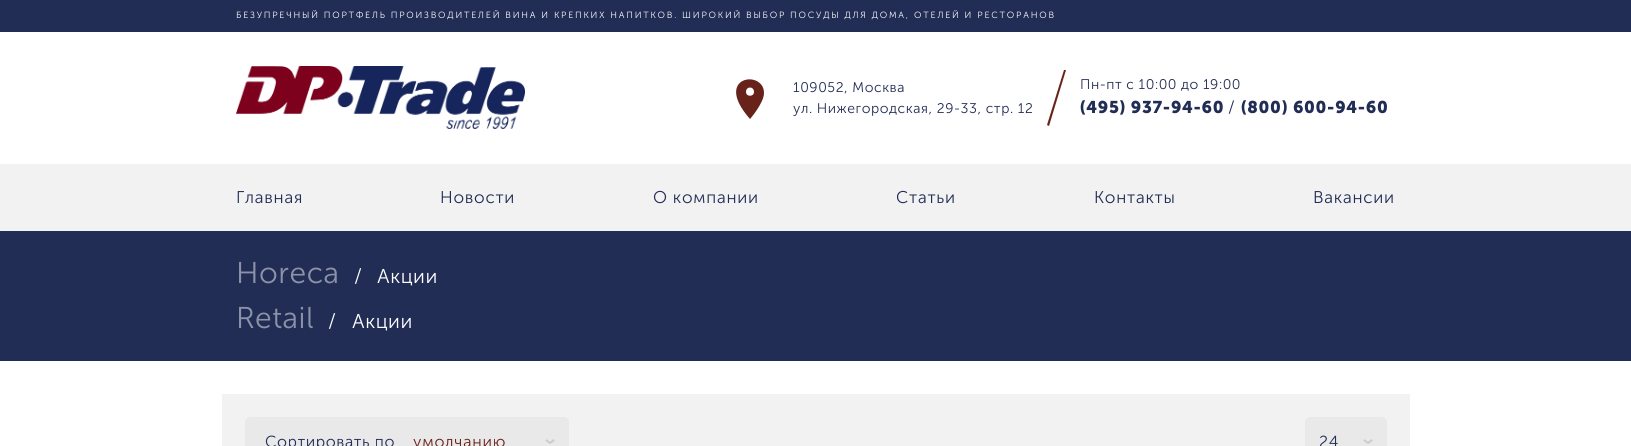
#include <cairo.h>
#include <math.h>
#include <stddef.h>


static void spaced_text(cairo_t *cr, double x, double y, const char *s, double letter, double word) {
    cairo_move_to(cr, x, y);
    while (*s) {
        char ch[5] = {0};
        int n = 0;
        do ch[n++] = *s++; while ((*s & 0xC0) == 0x80);
        cairo_show_text(cr, ch);
        cairo_rel_move_to(cr, letter + word * (*ch == ' '), 0);
    }
}

static void round_rect(cairo_t *cr, double x, double y, double w, double h, double r) {
    cairo_new_sub_path(cr);
    cairo_arc(cr, x + w - r, y + h - r, r, 0, M_PI / 2);
    cairo_arc(cr, x + r, y + h - r, r, M_PI / 2, M_PI);
    cairo_arc(cr, x + r, y + r, r, M_PI, 1.5 * M_PI);
    cairo_arc(cr, x + w - r, y + r, r, 1.5 * M_PI, 2 * M_PI);
    cairo_close_path(cr);
}

static void picture(cairo_t *cr, const char *path, double x, double y, double w, double h) {
    cairo_surface_t *image = cairo_image_surface_create_from_png(path);
    cairo_save(cr);
    cairo_set_source_surface(cr, image, x, y);
    cairo_rectangle(cr, x, y, w, h);
    cairo_fill(cr);
    cairo_restore(cr);
    cairo_surface_destroy(image);
}

int main(void) {
    cairo_surface_t *surface = cairo_image_surface_create(CAIRO_FORMAT_RGB24, 1631, 446);
    cairo_t *cr = cairo_create(surface);
    cairo_font_options_t *options = cairo_font_options_create();
    cairo_font_options_set_hint_metrics(options, CAIRO_HINT_METRICS_OFF);
    cairo_font_options_set_hint_style(options, CAIRO_HINT_STYLE_NONE);
    cairo_set_font_options(cr, options);
    cairo_set_miter_limit(cr, 4);
    cairo_set_source_rgb(cr, 1, 1, 1);
    cairo_paint(cr);
    cairo_set_source_rgb(cr, 0.133, 0.176, 0.333);
    cairo_rectangle(cr, 0, 0, 1631, 32);
    cairo_fill(cr);
    cairo_select_font_face(cr, "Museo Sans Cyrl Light", CAIRO_FONT_SLANT_NORMAL, CAIRO_FONT_WEIGHT_NORMAL);
    cairo_set_font_size(cr, 9);
    cairo_set_source_rgb(cr, 1, 1, 1);
    spaced_text(cr, 236, 18, "БЕЗУПРЕЧНЫЙ ПОРТФЕЛЬ ПРОИЗВОДИТЕЛЕЙ ВИНА И КРЕПКИХ НАПИТКОВ. ШИРОКИЙ ВЫБОР ПОСУДЫ ДЛЯ ДОМА, ОТЕЛЕЙ И РЕСТОРАНОВ", 1.8, 0);
    picture(cr, "img1.png", 236, 66, 289, 63);
    cairo_set_source_rgb(cr, 0.404, 0.133, 0.102);
    cairo_new_path(cr);
    cairo_move_to(cr, 764, 93);
    cairo_curve_to(cr, 764, 103, 750, 119, 750, 119);
    cairo_curve_to(cr, 712, 76, 764, 69, 764, 93);
    cairo_close_path(cr);
    cairo_move_to(cr, 746, 92);
    cairo_curve_to(cr, 746, 97, 754, 97, 754, 92);
    cairo_curve_to(cr, 754, 86, 746, 86, 746, 92);
    cairo_close_path(cr);
    cairo_fill(cr);
    cairo_set_font_size(cr, 14);
    cairo_set_source_rgb(cr, 0.133, 0.176, 0.333);
    spaced_text(cr, 793, 92, "109052, Москва", 0.55, 0);
    spaced_text(cr, 793, 113, "ул. Нижегородская, 29-33, стр. 12", 0.55, 0);
    cairo_set_source_rgb(cr, 0.404, 0.133, 0.102);
    cairo_new_path(cr);
    cairo_move_to(cr, 1064, 70);
    cairo_line_to(cr, 1066, 70);
    cairo_line_to(cr, 1049, 126);
    cairo_line_to(cr, 1047, 125);
    cairo_close_path(cr);
    cairo_fill(cr);
    cairo_set_source_rgb(cr, 0.133, 0.176, 0.333);
    spaced_text(cr, 1080, 89, "Пн-пт с 10:00 до 19:00", 0.55, 0);
    cairo_select_font_face(cr, "Museo Sans Cyrl", CAIRO_FONT_SLANT_NORMAL, CAIRO_FONT_WEIGHT_BOLD);
    cairo_set_font_size(cr, 17);
    spaced_text(cr, 1080, 113, "(495) 937-94-60", 0.7, 0);
    cairo_select_font_face(cr, "Museo Sans Cyrl Light", CAIRO_FONT_SLANT_NORMAL, CAIRO_FONT_WEIGHT_NORMAL);
    spaced_text(cr, 1228, 113, "/", 0.7, 0);
    cairo_select_font_face(cr, "Museo Sans Cyrl", CAIRO_FONT_SLANT_NORMAL, CAIRO_FONT_WEIGHT_BOLD);
    spaced_text(cr, 1241, 113, "(800) 600-94-60", 0.7, 0);
    cairo_set_source_rgb(cr, 0.949, 0.949, 0.949);
    cairo_rectangle(cr, 0, 164, 1631, 67);
    cairo_fill(cr);
    cairo_select_font_face(cr, "Museo Sans Cyrl Light", CAIRO_FONT_SLANT_NORMAL, CAIRO_FONT_WEIGHT_NORMAL);
    cairo_set_source_rgb(cr, 0.133, 0.176, 0.333);
    spaced_text(cr, 236, 203, "Главная", 0.75, 0);
    spaced_text(cr, 440, 203, "Новости", 0.75, 0);
    spaced_text(cr, 653, 203, "О компании", 0.75, 0);
    spaced_text(cr, 896, 203, "Статьи", 0.75, 0);
    spaced_text(cr, 1094, 203, "Контакты", 0.75, 0);
    spaced_text(cr, 1313, 203, "Вакансии", 0.75, 0);
    cairo_rectangle(cr, 0, 231, 1631, 130);
    cairo_fill(cr);
    cairo_set_font_size(cr, 30);
    cairo_set_source_rgb(cr, 0.549, 0.573, 0.655);
    spaced_text(cr, 236, 283, "Horeca", 0.55, 0);
    cairo_set_font_size(cr, 20);
    cairo_set_source_rgb(cr, 1, 1, 1);
    spaced_text(cr, 354, 283, "/", 0.55, 0);
    spaced_text(cr, 377, 283, "Акции", 0.55, 0);
    cairo_set_font_size(cr, 30);
    cairo_set_source_rgb(cr, 0.549, 0.573, 0.655);
    spaced_text(cr, 236, 328, "Retail", 0.55, 0);
    cairo_set_font_size(cr, 20);
    cairo_set_source_rgb(cr, 1, 1, 1);
    spaced_text(cr, 328, 328, "/", 0.55, 0);
    spaced_text(cr, 352, 328, "Акции", 0.55, 0);
    cairo_set_source_rgb(cr, 0.949, 0.949, 0.949);
    cairo_rectangle(cr, 222, 394, 1188, 52);
    cairo_fill(cr);
    cairo_set_source_rgb(cr, 0.914, 0.914, 0.914);
    round_rect(cr, 245, 417, 324, 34, 5);
    cairo_fill(cr);
    cairo_set_font_size(cr, 16);
    cairo_set_source_rgb(cr, 0.133, 0.176, 0.333);
    spaced_text(cr, 265, 447, "Сортировать по", 0.55, 0);
    picture(cr, "img2.png", 545, 439, 10, 5);
    cairo_set_source_rgb(cr, 0.404, 0.133, 0.102);
    spaced_text(cr, 413, 447, "умолчанию", 0.75, 0);
    cairo_set_source_rgb(cr, 0.914, 0.914, 0.914);
    round_rect(cr, 1305, 417, 82, 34, 5);
    cairo_fill(cr);
    picture(cr, "img2.png", 1363, 439, 10, 5);
    cairo_set_source_rgb(cr, 0.133, 0.176, 0.333);
    spaced_text(cr, 1319, 447, "24", 0.75, 0);
    cairo_surface_write_to_png(surface, "page.png");
    cairo_font_options_destroy(options);
    cairo_destroy(cr);
    cairo_surface_destroy(surface);
    return 0;
}
